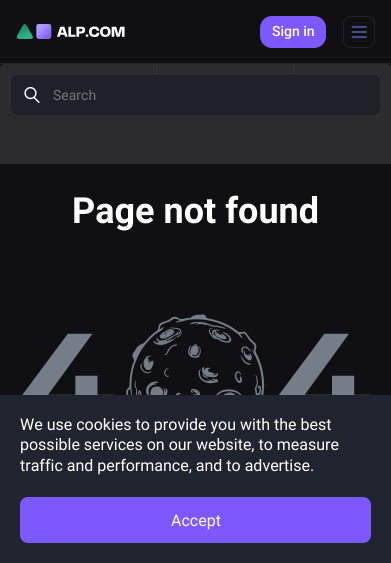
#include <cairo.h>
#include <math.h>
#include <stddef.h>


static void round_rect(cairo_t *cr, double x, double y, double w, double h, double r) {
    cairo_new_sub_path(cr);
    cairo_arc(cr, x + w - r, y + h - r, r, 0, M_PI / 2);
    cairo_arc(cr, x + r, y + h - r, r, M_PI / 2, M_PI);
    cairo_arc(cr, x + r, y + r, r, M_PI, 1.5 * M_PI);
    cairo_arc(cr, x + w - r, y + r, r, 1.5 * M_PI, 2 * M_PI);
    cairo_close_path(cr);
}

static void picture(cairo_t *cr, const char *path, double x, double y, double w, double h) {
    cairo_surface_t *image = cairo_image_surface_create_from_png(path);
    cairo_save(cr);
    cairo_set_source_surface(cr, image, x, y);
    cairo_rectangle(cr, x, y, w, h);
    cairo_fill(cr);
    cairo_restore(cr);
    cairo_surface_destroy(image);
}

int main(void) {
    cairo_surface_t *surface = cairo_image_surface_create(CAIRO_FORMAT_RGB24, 391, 563);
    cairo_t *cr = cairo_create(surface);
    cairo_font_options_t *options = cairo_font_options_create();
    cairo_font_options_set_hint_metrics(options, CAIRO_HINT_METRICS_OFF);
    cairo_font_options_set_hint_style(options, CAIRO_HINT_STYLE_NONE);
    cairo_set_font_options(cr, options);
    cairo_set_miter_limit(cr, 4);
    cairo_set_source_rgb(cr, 0.063, 0.063, 0.078);
    cairo_paint(cr);
    cairo_set_source_rgb(cr, 0.129, 0.129, 0.149);
    cairo_rectangle(cr, 0, 63, 391, 1);
    cairo_fill(cr);
    picture(cr, "img1.png", 16, 24, 109, 15);
    cairo_set_source_rgb(cr, 0.486, 0.349, 1);
    round_rect(cr, 260, 16, 66, 32, 12);
    cairo_fill(cr);
    cairo_select_font_face(cr, "Roboto Medium", CAIRO_FONT_SLANT_NORMAL, CAIRO_FONT_WEIGHT_NORMAL);
    cairo_set_font_size(cr, 14);
    cairo_set_source_rgb(cr, 1, 1, 1);
    cairo_move_to(cr, 272, 36);
    cairo_show_text(cr, "Sign in");
    round_rect(cr, 343.5, 16.5, 31, 31, 7.5);
    cairo_set_source_rgb(cr, 0.129, 0.129, 0.149);
    cairo_set_line_width(cr, 1);
    cairo_stroke(cr);
    cairo_new_path(cr);
    cairo_move_to(cr, 352.5, 32);
    cairo_line_to(cr, 366, 32);
    cairo_move_to(cr, 352.5, 27);
    cairo_line_to(cr, 366, 27);
    cairo_move_to(cr, 352.5, 37);
    cairo_line_to(cr, 366, 37);
    cairo_set_source_rgb(cr, 0.306, 0.333, 0.635);
    cairo_set_line_width(cr, 1.7);
    cairo_set_line_cap(cr, CAIRO_LINE_CAP_ROUND);
    cairo_set_line_join(cr, CAIRO_LINE_JOIN_ROUND);
    cairo_stroke(cr);
    cairo_set_source_rgb(cr, 0.173, 0.173, 0.18);
    cairo_new_path(cr);
    cairo_move_to(cr, 5, 64);
    cairo_line_to(cr, 386, 64);
    cairo_curve_to(cr, 389, 64, 391, 66, 391, 69);
    cairo_line_to(cr, 391, 164);
    cairo_line_to(cr, 0, 164);
    cairo_line_to(cr, 0, 69);
    cairo_curve_to(cr, 0, 66, 2, 64, 5, 64);
    cairo_close_path(cr);
    cairo_fill(cr);
    cairo_set_source_rgb(cr, 0.188, 0.196, 0.212);
    cairo_set_fill_rule(cr, CAIRO_FILL_RULE_EVEN_ODD);
    cairo_new_path(cr);
    cairo_move_to(cr, 156, 64);
    cairo_line_to(cr, 294, 64);
    cairo_line_to(cr, 294, 86);
    cairo_curve_to(cr, 294, 93, 289, 98, 282, 98);
    cairo_line_to(cr, 168, 98);
    cairo_curve_to(cr, 161, 98, 156, 93, 156, 86);
    cairo_close_path(cr);
    cairo_move_to(cr, 157, 64);
    cairo_line_to(cr, 293, 64);
    cairo_line_to(cr, 293, 86);
    cairo_curve_to(cr, 293, 92, 288, 97, 282, 97);
    cairo_line_to(cr, 168, 97);
    cairo_curve_to(cr, 162, 97, 157, 92, 157, 86);
    cairo_close_path(cr);
    cairo_fill(cr);
    cairo_set_source_rgb(cr, 0.125, 0.125, 0.157);
    round_rect(cr, 10.5, 74.5, 370, 41, 7.5);
    cairo_fill_preserve(cr);
    cairo_set_source_rgb(cr, 0.173, 0.173, 0.18);
    cairo_set_line_width(cr, 1);
    cairo_set_line_cap(cr, CAIRO_LINE_CAP_BUTT);
    cairo_set_line_join(cr, CAIRO_LINE_JOIN_MITER);
    cairo_stroke(cr);
    picture(cr, "img2.png", 24, 87, 16, 16);
    cairo_select_font_face(cr, "Roboto", CAIRO_FONT_SLANT_NORMAL, CAIRO_FONT_WEIGHT_NORMAL);
    cairo_set_source_rgb(cr, 0.459, 0.459, 0.459);
    cairo_move_to(cr, 53, 100);
    cairo_show_text(cr, "Search");
    cairo_select_font_face(cr, "Roboto", CAIRO_FONT_SLANT_NORMAL, CAIRO_FONT_WEIGHT_BOLD);
    cairo_set_font_size(cr, 36);
    cairo_set_source_rgb(cr, 1, 1, 1);
    cairo_move_to(cr, 72, 223);
    cairo_show_text(cr, "Page not found");
    picture(cr, "img3.png", 22, 314, 349, 81);
    cairo_set_source_rgb(cr, 0.125, 0.141, 0.18);
    cairo_rectangle(cr, 0, 395, 391, 168);
    cairo_fill(cr);
    cairo_select_font_face(cr, "Roboto", CAIRO_FONT_SLANT_NORMAL, CAIRO_FONT_WEIGHT_NORMAL);
    cairo_set_font_size(cr, 16);
    cairo_set_source_rgb(cr, 1, 1, 1);
    cairo_move_to(cr, 20, 430);
    cairo_show_text(cr, "We use cookies to provide you with the best");
    cairo_move_to(cr, 20, 450);
    cairo_show_text(cr, "possible services on our website, to measure");
    cairo_move_to(cr, 20, 471);
    cairo_show_text(cr, "traffic and performance, and to advertise.");
    cairo_set_source_rgb(cr, 0.486, 0.349, 1);
    round_rect(cr, 20, 497, 351, 46, 8);
    cairo_fill(cr);
    cairo_set_source_rgb(cr, 1, 1, 1);
    cairo_move_to(cr, 171, 526);
    cairo_show_text(cr, "Accept");
    cairo_surface_write_to_png(surface, "page.png");
    cairo_font_options_destroy(options);
    cairo_destroy(cr);
    cairo_surface_destroy(surface);
    return 0;
}
